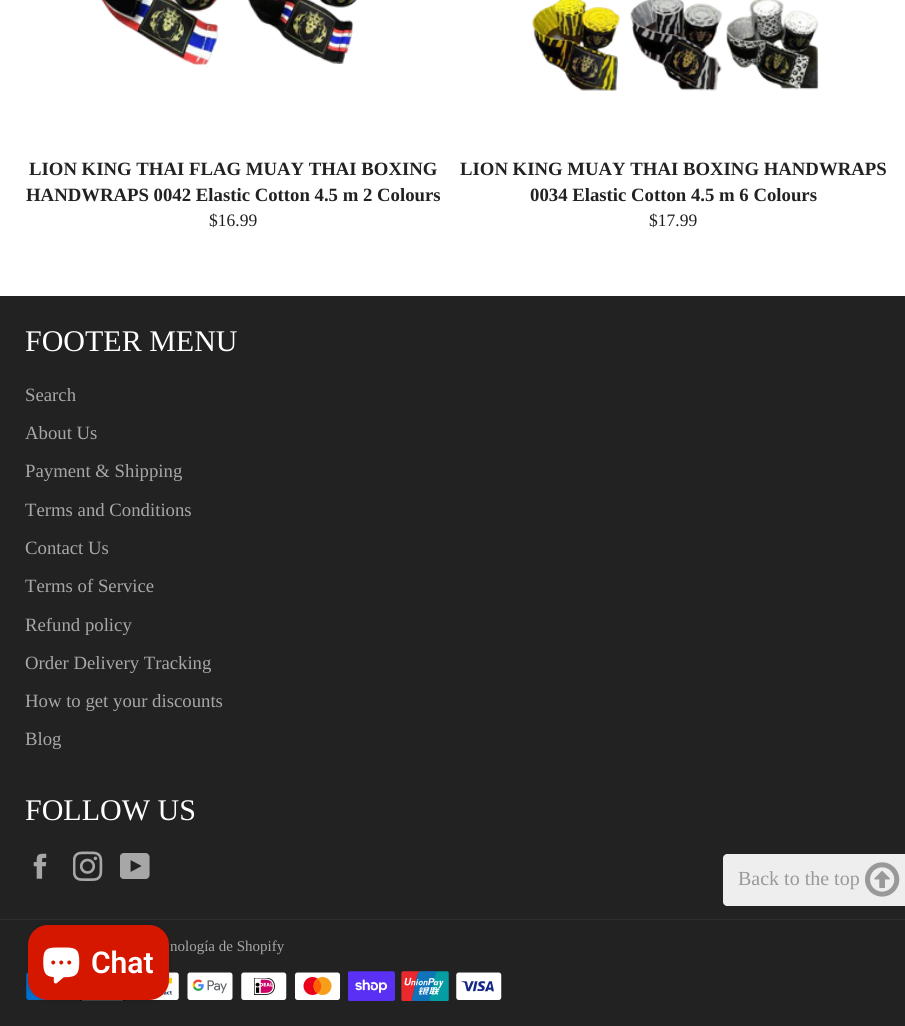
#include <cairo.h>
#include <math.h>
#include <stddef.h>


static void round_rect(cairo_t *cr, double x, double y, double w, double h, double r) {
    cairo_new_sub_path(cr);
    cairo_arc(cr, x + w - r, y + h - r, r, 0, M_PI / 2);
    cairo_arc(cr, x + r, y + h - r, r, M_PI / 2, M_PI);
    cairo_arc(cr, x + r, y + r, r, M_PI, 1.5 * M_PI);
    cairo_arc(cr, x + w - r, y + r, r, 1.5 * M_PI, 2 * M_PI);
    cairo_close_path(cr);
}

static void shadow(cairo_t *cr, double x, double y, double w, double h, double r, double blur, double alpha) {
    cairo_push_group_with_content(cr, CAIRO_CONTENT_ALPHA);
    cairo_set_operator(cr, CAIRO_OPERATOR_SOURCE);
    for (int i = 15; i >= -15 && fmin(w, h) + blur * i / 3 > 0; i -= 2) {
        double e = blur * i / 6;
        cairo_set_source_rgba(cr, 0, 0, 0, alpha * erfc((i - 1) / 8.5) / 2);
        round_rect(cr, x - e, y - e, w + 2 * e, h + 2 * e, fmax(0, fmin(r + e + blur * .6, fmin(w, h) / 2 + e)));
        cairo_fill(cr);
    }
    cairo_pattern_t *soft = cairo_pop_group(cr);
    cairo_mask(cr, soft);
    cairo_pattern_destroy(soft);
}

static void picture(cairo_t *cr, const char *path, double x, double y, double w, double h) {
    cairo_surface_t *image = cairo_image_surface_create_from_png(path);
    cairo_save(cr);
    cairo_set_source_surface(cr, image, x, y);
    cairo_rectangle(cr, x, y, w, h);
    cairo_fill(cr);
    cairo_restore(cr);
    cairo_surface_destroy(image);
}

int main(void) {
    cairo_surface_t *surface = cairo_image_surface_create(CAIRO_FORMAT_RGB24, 905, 1026);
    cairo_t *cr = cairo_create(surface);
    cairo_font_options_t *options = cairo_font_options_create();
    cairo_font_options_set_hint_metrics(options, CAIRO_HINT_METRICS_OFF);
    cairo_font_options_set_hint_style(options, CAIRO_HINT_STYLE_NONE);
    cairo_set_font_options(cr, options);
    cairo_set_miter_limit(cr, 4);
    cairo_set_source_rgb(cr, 1, 1, 1);
    cairo_paint(cr);
    picture(cr, "img1.png", 101, 0, 256, 66);
    cairo_select_font_face(cr, "Liberation Serif", CAIRO_FONT_SLANT_NORMAL, CAIRO_FONT_WEIGHT_BOLD);
    cairo_set_font_size(cr, 18.75);
    cairo_set_source_rgb(cr, 0.133, 0.133, 0.133);
    cairo_move_to(cr, 29, 175);
    cairo_show_text(cr, "LION KING THAI FLAG MUAY THAI BOXING");
    cairo_move_to(cr, 26, 201);
    cairo_show_text(cr, "HANDWRAPS 0042 Elastic Cotton 4.5 m 2 Colours");
    cairo_select_font_face(cr, "Liberation Serif", CAIRO_FONT_SLANT_NORMAL, CAIRO_FONT_WEIGHT_NORMAL);
    cairo_set_font_size(cr, 17.5);
    cairo_move_to(cr, 209, 226);
    cairo_show_text(cr, "$16.99");
    picture(cr, "img2.png", 532, 0, 287, 91);
    cairo_select_font_face(cr, "Liberation Serif", CAIRO_FONT_SLANT_NORMAL, CAIRO_FONT_WEIGHT_BOLD);
    cairo_set_font_size(cr, 18.75);
    cairo_move_to(cr, 460, 175);
    cairo_show_text(cr, "LION KING MUAY THAI BOXING HANDWRAPS");
    cairo_move_to(cr, 530, 201);
    cairo_show_text(cr, "0034 Elastic Cotton 4.5 m 6 Colours");
    cairo_select_font_face(cr, "Liberation Serif", CAIRO_FONT_SLANT_NORMAL, CAIRO_FONT_WEIGHT_NORMAL);
    cairo_set_font_size(cr, 17.5);
    cairo_move_to(cr, 649, 226);
    cairo_show_text(cr, "$17.99");
    cairo_rectangle(cr, 0, 296, 905, 730);
    cairo_fill(cr);
    cairo_set_font_size(cr, 30);
    cairo_set_source_rgb(cr, 1, 1, 1);
    cairo_move_to(cr, 25, 351);
    cairo_show_text(cr, "FOOTER MENU");
    cairo_set_font_size(cr, 18.75);
    cairo_set_source_rgb(cr, 0.655, 0.655, 0.655);
    cairo_move_to(cr, 25, 401);
    cairo_show_text(cr, "Search");
    cairo_move_to(cr, 25, 439);
    cairo_show_text(cr, "About Us");
    cairo_move_to(cr, 25, 477);
    cairo_show_text(cr, "Payment & Shipping");
    cairo_move_to(cr, 25, 516);
    cairo_show_text(cr, "Terms and Conditions");
    cairo_move_to(cr, 25, 554);
    cairo_show_text(cr, "Contact Us");
    cairo_move_to(cr, 25, 592);
    cairo_show_text(cr, "Terms of Service");
    cairo_move_to(cr, 25, 631);
    cairo_show_text(cr, "Refund policy");
    cairo_move_to(cr, 25, 669);
    cairo_show_text(cr, "Order Delivery Tracking");
    cairo_move_to(cr, 25, 707);
    cairo_show_text(cr, "How to get your discounts");
    cairo_move_to(cr, 25, 745);
    cairo_show_text(cr, "Blog");
    cairo_set_font_size(cr, 30);
    cairo_set_source_rgb(cr, 1, 1, 1);
    cairo_move_to(cr, 25, 820);
    cairo_show_text(cr, "FOLLOW US");
    picture(cr, "img3.png", 33, 853, 14, 26);
    picture(cr, "img4.png", 73, 851, 30, 30);
    picture(cr, "img5.png", 120, 853, 30, 26);
    cairo_set_source_rgb(cr, 0.184, 0.184, 0.184);
    cairo_rectangle(cr, 0, 919, 905, 1);
    cairo_fill(cr);
    cairo_set_font_size(cr, 15);
    cairo_set_source_rgb(cr, 0.655, 0.655, 0.655);
    cairo_move_to(cr, 170, 951);
    cairo_show_text(cr, "nología de Shopify");
    picture(cr, "img6.png", 26, 972, 22, 28);
    picture(cr, "img7.png", 149, 972, 30, 28);
    picture(cr, "img8.png", 187, 972, 46, 28);
    picture(cr, "img9.png", 241, 972, 46, 28);
    picture(cr, "img10.png", 295, 972, 45, 28);
    picture(cr, "img11.png", 348, 971, 47, 30);
    picture(cr, "img12.png", 401, 971, 48, 30);
    picture(cr, "img13.png", 456, 972, 46, 28);
    picture(cr, "img14.png", 79, 1000, 47, 1);
    cairo_set_source_rgb(cr, 0.933, 0.933, 0.933);
    cairo_new_path(cr);
    cairo_move_to(cr, 727, 854);
    cairo_line_to(cr, 905, 854);
    cairo_line_to(cr, 905, 906);
    cairo_line_to(cr, 727, 906);
    cairo_curve_to(cr, 725, 906, 723, 904, 723, 902);
    cairo_line_to(cr, 723, 858);
    cairo_curve_to(cr, 723, 856, 725, 854, 727, 854);
    cairo_close_path(cr);
    cairo_fill(cr);
    cairo_set_font_size(cr, 20);
    cairo_set_source_rgb(cr, 0.6, 0.6, 0.6);
    cairo_move_to(cr, 738, 885);
    cairo_show_text(cr, "Back to the top");
    picture(cr, "img15.png", 865, 862, 35, 35);
    cairo_set_source_rgb(cr, 0, 0, 0);
    shadow(cr, 28, 925, 141, 75, 20, 3, 0.15);
    cairo_set_source_rgb(cr, 0.839, 0.09, 0);
    round_rect(cr, 28, 925, 141, 75, 20);
    cairo_fill(cr);
    picture(cr, "img16.png", 43, 947, 37, 37);
    cairo_select_font_face(cr, "Roboto SemiBold", CAIRO_FONT_SLANT_NORMAL, CAIRO_FONT_WEIGHT_NORMAL);
    cairo_set_font_size(cr, 30);
    cairo_set_source_rgb(cr, 1, 1, 1);
    cairo_move_to(cr, 91, 973);
    cairo_show_text(cr, "Chat");
    cairo_surface_write_to_png(surface, "page.png");
    cairo_font_options_destroy(options);
    cairo_destroy(cr);
    cairo_surface_destroy(surface);
    return 0;
}
